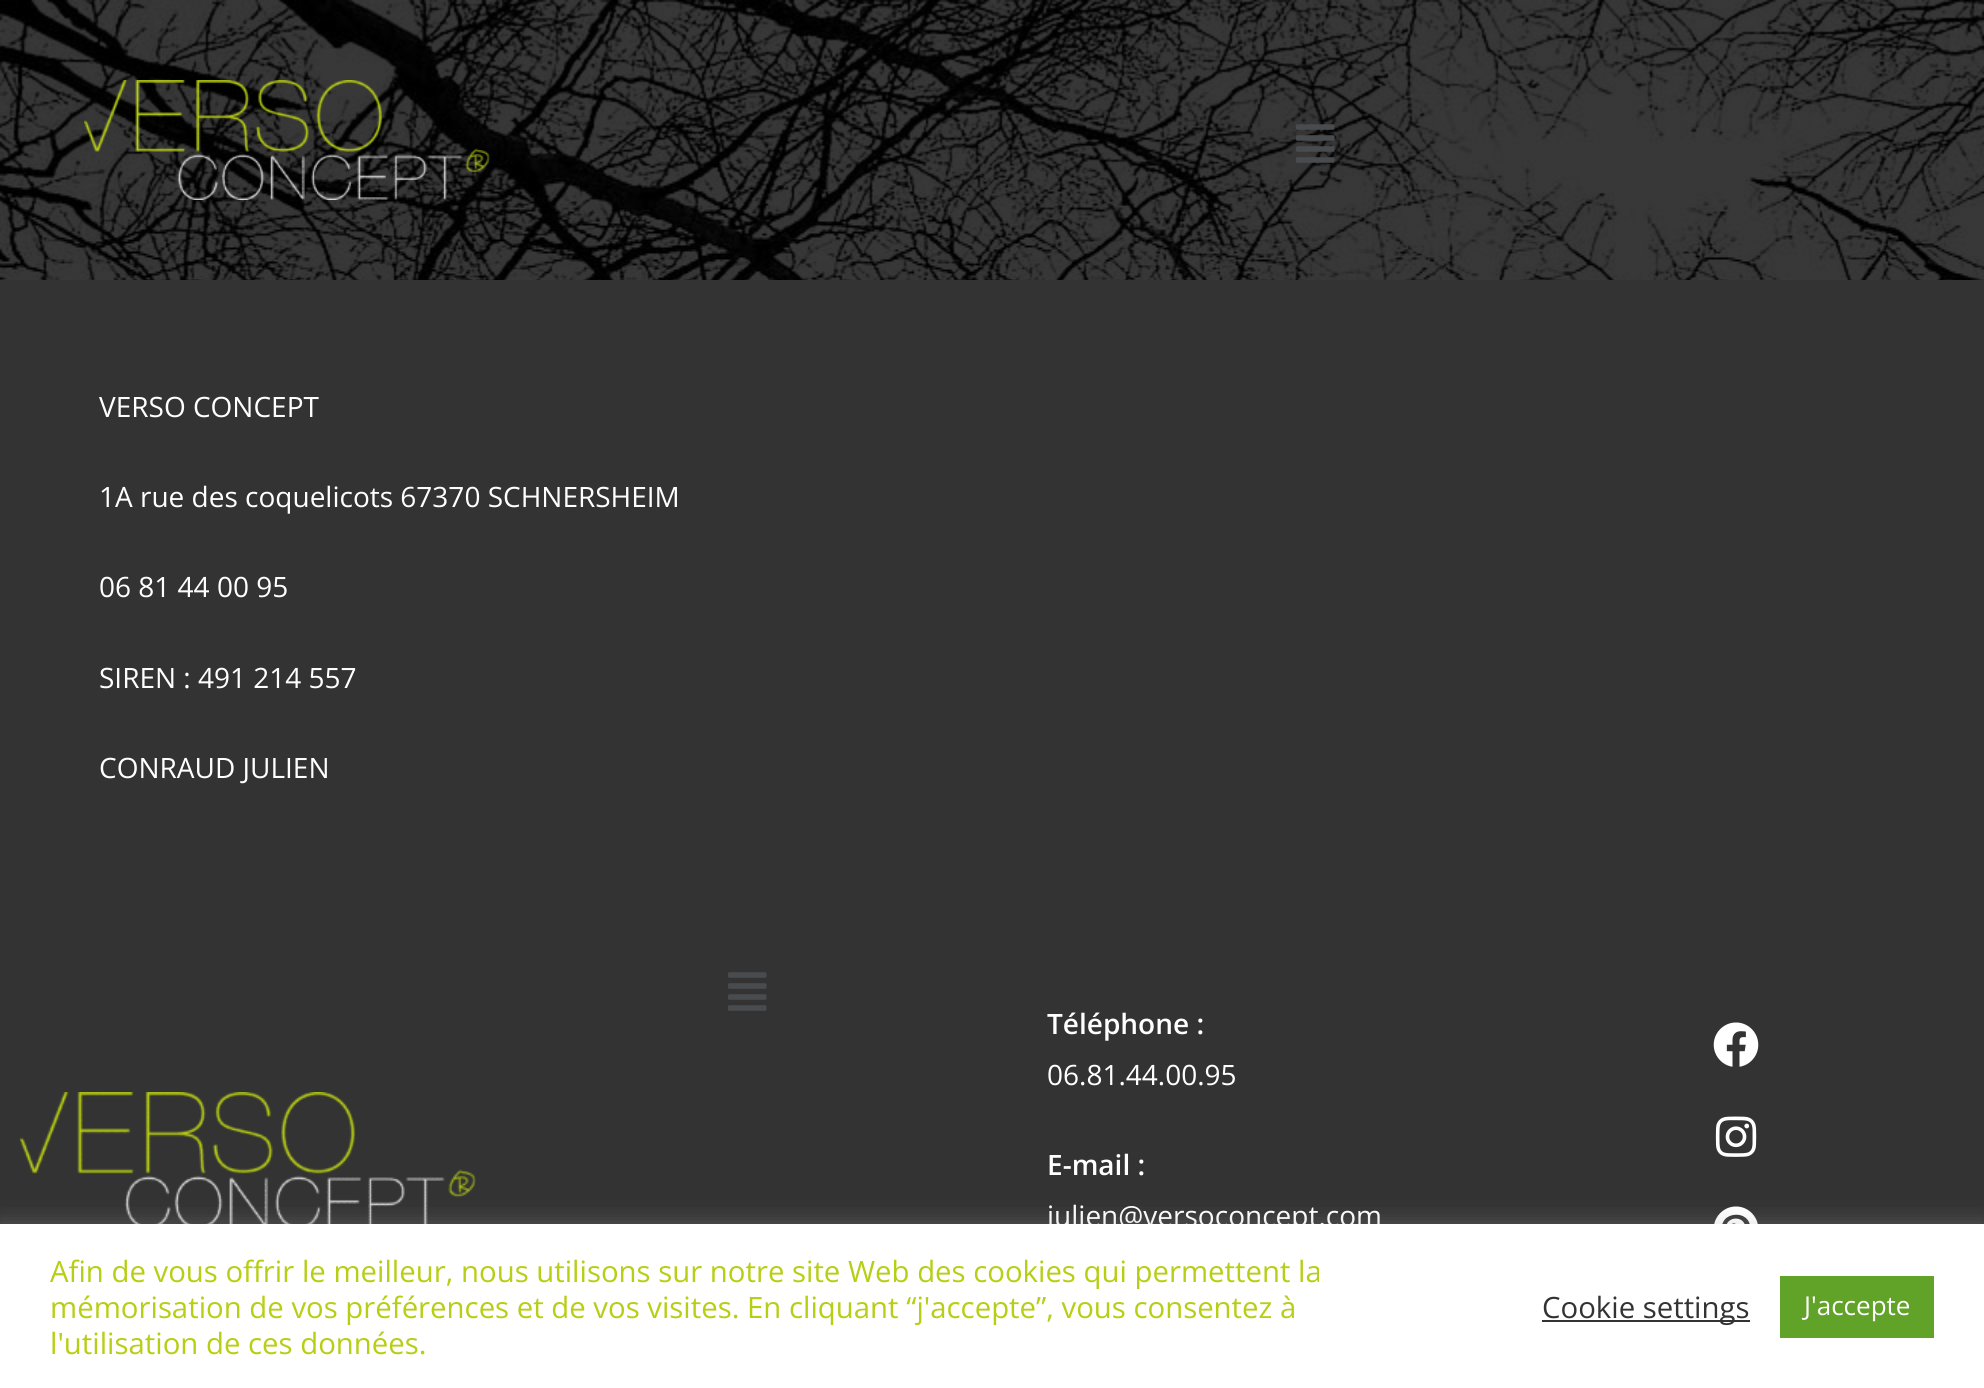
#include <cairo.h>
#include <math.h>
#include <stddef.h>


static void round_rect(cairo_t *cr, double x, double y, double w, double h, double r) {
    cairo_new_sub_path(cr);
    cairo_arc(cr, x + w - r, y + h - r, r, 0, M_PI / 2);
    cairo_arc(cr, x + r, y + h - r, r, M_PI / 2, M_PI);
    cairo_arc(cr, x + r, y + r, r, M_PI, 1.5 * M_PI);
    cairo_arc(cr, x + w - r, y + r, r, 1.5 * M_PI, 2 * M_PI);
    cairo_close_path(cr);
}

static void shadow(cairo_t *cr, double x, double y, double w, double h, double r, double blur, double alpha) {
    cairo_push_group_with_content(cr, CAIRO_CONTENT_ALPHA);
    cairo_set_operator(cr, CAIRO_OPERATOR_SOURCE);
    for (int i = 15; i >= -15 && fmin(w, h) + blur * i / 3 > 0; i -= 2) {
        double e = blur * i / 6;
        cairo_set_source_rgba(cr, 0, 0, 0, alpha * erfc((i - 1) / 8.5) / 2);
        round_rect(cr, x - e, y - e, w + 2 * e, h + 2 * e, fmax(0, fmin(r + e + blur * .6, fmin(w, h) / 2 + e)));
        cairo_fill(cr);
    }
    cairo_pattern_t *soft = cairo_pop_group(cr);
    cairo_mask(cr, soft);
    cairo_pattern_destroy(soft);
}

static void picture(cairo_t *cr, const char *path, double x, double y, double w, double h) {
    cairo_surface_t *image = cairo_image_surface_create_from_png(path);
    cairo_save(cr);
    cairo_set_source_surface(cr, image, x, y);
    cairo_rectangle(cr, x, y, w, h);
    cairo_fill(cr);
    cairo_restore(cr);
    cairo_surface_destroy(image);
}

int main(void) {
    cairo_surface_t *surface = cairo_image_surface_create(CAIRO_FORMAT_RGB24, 1984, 1388);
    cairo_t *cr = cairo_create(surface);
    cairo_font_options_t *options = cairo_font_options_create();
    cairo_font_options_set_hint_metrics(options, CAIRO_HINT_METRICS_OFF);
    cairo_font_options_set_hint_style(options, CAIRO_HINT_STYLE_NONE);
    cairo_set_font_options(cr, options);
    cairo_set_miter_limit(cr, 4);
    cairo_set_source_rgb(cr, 0.2, 0.2, 0.2);
    cairo_paint(cr);
    picture(cr, "img1.png", 0, 0, 1984, 280);
    picture(cr, "img2.png", 84, 80, 406, 120);
    picture(cr, "img3.png", 1296, 124, 39, 39);
    cairo_select_font_face(cr, "Open Sans", CAIRO_FONT_SLANT_NORMAL, CAIRO_FONT_WEIGHT_NORMAL);
    cairo_set_font_size(cr, 28);
    cairo_set_source_rgb(cr, 1, 1, 1);
    cairo_move_to(cr, 99, 417);
    cairo_show_text(cr, "VERSO CONCEPT");
    cairo_move_to(cr, 99, 507);
    cairo_show_text(cr, "1A rue des coquelicots 67370 SCHNERSHEIM");
    cairo_move_to(cr, 99, 597);
    cairo_show_text(cr, "06 81 44 00 95");
    cairo_move_to(cr, 99, 688);
    cairo_show_text(cr, "SIREN : 491 214 557");
    cairo_move_to(cr, 99, 778);
    cairo_show_text(cr, "CONRAUD JULIEN");
    picture(cr, "img4.png", 728, 972, 39, 39);
    picture(cr, "img5.png", 20, 1092, 456, 132);
    cairo_select_font_face(cr, "Open Sans SemiBold", CAIRO_FONT_SLANT_NORMAL, CAIRO_FONT_WEIGHT_NORMAL);
    cairo_move_to(cr, 1047, 1034);
    cairo_show_text(cr, "Téléphone :");
    cairo_select_font_face(cr, "Open Sans", CAIRO_FONT_SLANT_NORMAL, CAIRO_FONT_WEIGHT_NORMAL);
    cairo_move_to(cr, 1047, 1085);
    cairo_show_text(cr, "06.81.44.00.95");
    cairo_select_font_face(cr, "Open Sans SemiBold", CAIRO_FONT_SLANT_NORMAL, CAIRO_FONT_WEIGHT_NORMAL);
    cairo_move_to(cr, 1047, 1175);
    cairo_show_text(cr, "E-mail :");
    cairo_select_font_face(cr, "Open Sans", CAIRO_FONT_SLANT_NORMAL, CAIRO_FONT_WEIGHT_NORMAL);
    cairo_move_to(cr, 1047, 1226);
    cairo_show_text(cr, "julien@versoconcept.com");
    picture(cr, "img6.png", 1713, 1022, 46, 45);
    picture(cr, "img7.png", 1715, 1116, 42, 41);
    picture(cr, "img8.png", 1714, 1206, 44, 18);
    cairo_set_source_rgb(cr, 0.675, 0.671, 0.671);
    shadow(cr, 0, 1222, 1984, 164, 0, 10, 0.3);
    cairo_set_source_rgb(cr, 1, 1, 1);
    cairo_rectangle(cr, 0, 1224, 1984, 164);
    cairo_fill(cr);
    cairo_set_font_size(cr, 29.35);
    cairo_set_source_rgb(cr, 0.722, 0.808, 0.082);
    cairo_move_to(cr, 50, 1282);
    cairo_show_text(cr, "Afin de vous offrir le meilleur, nous utilisons sur notre site Web des cookies qui permettent la");
    cairo_move_to(cr, 50, 1318);
    cairo_show_text(cr, "mémorisation de vos préférences et de vos visites. En cliquant “j'accepte”, vous consentez à");
    cairo_move_to(cr, 50, 1354);
    cairo_show_text(cr, "l'utilisation de ces données.");
    cairo_set_source_rgb(cr, 0.2, 0.2, 0.2);
    cairo_rectangle(cr, 1542, 1320, 208, 2);
    cairo_fill(cr);
    cairo_move_to(cr, 1542, 1318);
    cairo_show_text(cr, "Cookie settings");
    cairo_set_source_rgb(cr, 0.38, 0.635, 0.161);
    cairo_rectangle(cr, 1780, 1276, 154, 62);
    cairo_fill(cr);
    cairo_set_font_size(cr, 26);
    cairo_set_source_rgb(cr, 1, 1, 1);
    cairo_move_to(cr, 1804, 1315);
    cairo_show_text(cr, "J'accepte");
    cairo_surface_write_to_png(surface, "page.png");
    cairo_font_options_destroy(options);
    cairo_destroy(cr);
    cairo_surface_destroy(surface);
    return 0;
}
